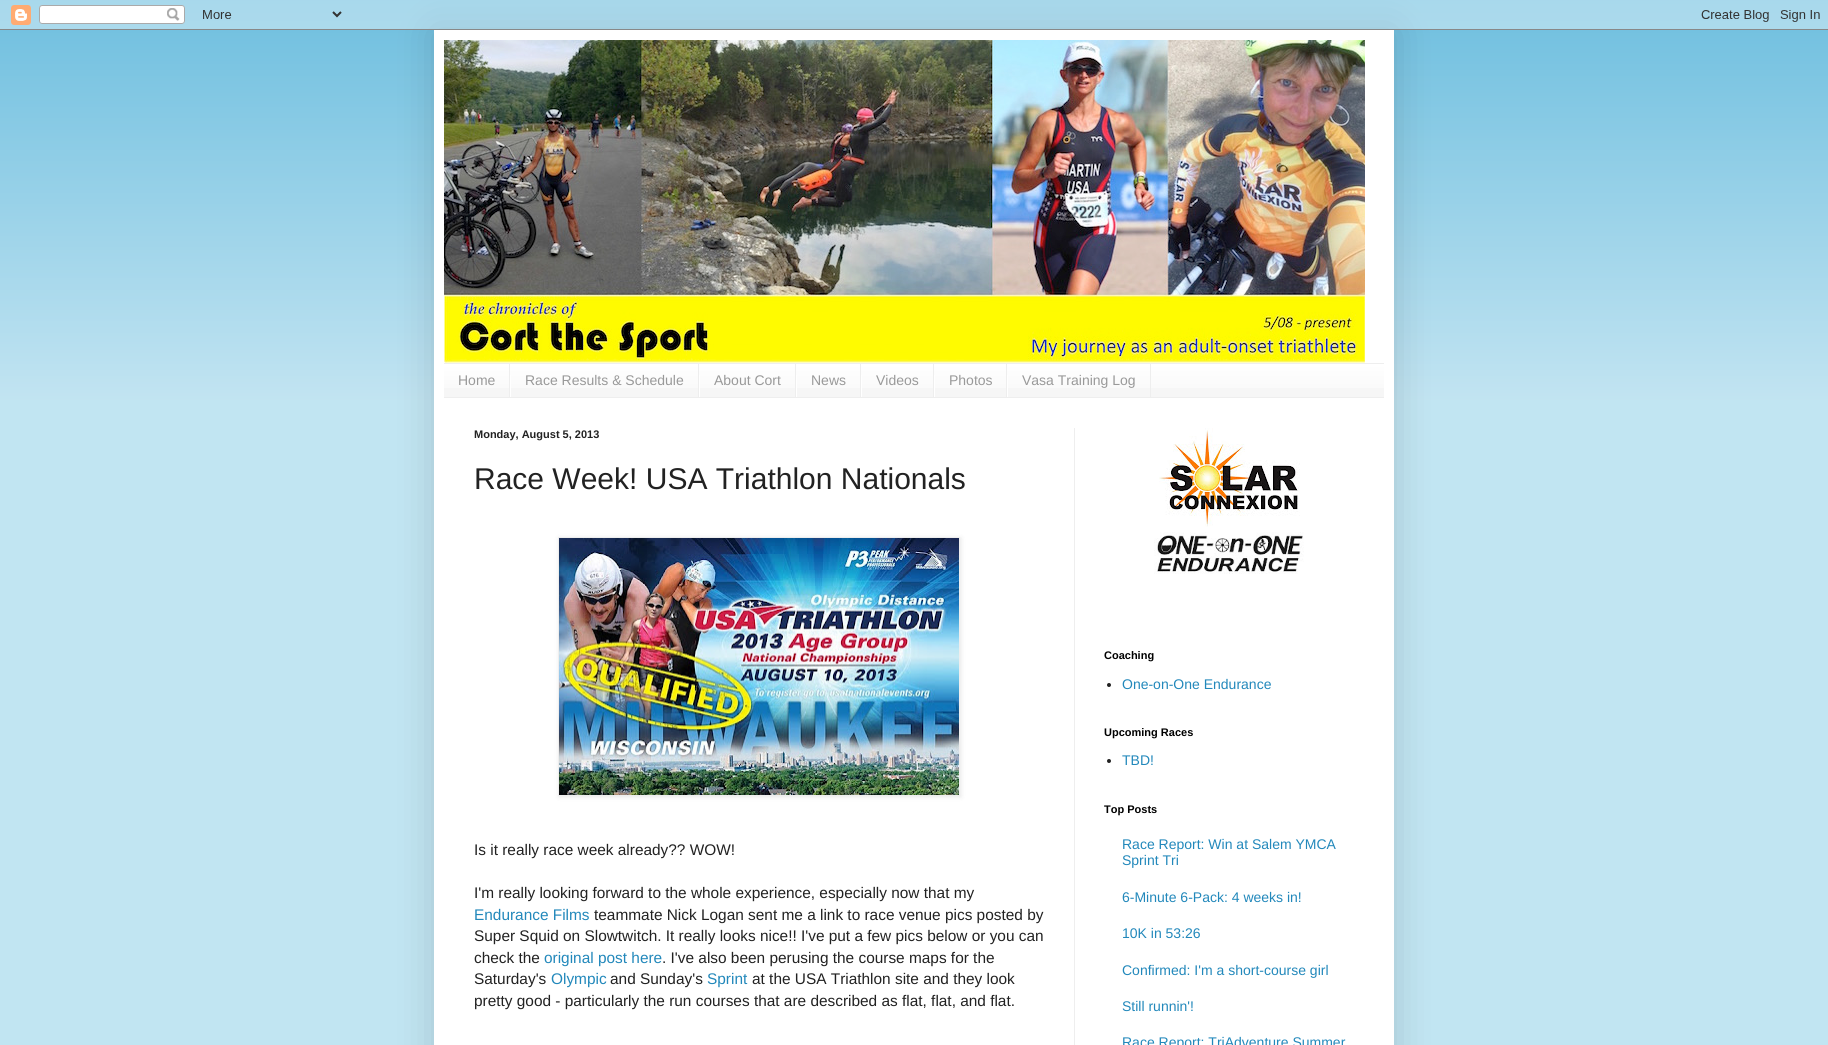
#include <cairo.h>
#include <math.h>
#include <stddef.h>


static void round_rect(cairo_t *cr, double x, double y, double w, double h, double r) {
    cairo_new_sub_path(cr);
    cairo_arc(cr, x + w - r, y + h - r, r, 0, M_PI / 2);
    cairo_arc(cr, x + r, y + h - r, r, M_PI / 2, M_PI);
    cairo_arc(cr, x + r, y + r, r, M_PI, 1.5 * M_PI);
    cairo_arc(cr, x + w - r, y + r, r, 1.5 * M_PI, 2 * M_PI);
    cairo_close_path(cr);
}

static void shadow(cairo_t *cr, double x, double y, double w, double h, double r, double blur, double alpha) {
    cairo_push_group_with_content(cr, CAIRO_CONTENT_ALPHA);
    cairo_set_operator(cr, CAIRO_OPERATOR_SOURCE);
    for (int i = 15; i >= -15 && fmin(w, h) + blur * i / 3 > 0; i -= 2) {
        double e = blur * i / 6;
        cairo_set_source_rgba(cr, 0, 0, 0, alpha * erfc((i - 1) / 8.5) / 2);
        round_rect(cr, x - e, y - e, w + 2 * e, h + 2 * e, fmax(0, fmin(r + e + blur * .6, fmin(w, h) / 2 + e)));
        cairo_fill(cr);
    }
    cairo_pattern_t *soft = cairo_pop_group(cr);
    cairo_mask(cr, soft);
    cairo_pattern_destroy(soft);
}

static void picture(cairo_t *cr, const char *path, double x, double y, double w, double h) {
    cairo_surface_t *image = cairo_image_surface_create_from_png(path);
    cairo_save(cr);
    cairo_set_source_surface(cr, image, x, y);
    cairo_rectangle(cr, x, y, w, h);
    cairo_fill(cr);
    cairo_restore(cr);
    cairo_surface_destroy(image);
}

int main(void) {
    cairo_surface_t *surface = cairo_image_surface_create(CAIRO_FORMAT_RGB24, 1828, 1045);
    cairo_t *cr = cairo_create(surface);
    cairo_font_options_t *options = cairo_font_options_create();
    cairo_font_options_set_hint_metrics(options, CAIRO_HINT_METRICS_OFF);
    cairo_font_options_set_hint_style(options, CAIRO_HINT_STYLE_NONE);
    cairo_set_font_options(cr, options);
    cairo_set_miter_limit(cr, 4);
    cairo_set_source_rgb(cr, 0.757, 0.898, 0.949);
    cairo_paint(cr);
    cairo_set_source_rgb(cr, 0.4, 0.733, 0.867);
    cairo_rectangle(cr, 0, 0, 1828, 400);
    cairo_fill(cr);
    picture(cr, "img1.png", 0, 0, 1828, 400);
    cairo_set_source_rgb(cr, 0, 0, 0);
    shadow(cr, 434, 30, 960, 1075, 0, 20, 0.15);
    picture(cr, "img2.png", 0, 0, 1828, 30);
    cairo_set_source_rgb(cr, 1, 1, 1);
    cairo_rectangle(cr, 434, 30, 960, 1015);
    cairo_fill(cr);
    picture(cr, "img3.png", 444, 40, 921, 323);
    cairo_set_source_rgb(cr, 0.961, 0.961, 0.961);
    cairo_rectangle(cr, 444, 365, 940, 32);
    cairo_fill(cr);
    picture(cr, "img4.png", 444, 364, 940, 24);
    cairo_set_source_rgb(cr, 0.933, 0.933, 0.933);
    cairo_rectangle(cr, 444, 363, 940, 1);
    cairo_fill(cr);
    cairo_rectangle(cr, 444, 397, 940, 1);
    cairo_fill(cr);
    cairo_rectangle(cr, 509, 364, 1, 33);
    cairo_fill(cr);
    cairo_select_font_face(cr, "Liberation Sans", CAIRO_FONT_SLANT_NORMAL, CAIRO_FONT_WEIGHT_NORMAL);
    cairo_set_font_size(cr, 14);
    cairo_set_source_rgb(cr, 0.6, 0.6, 0.6);
    cairo_move_to(cr, 458, 385);
    cairo_show_text(cr, "Home");
    cairo_set_source_rgb(cr, 0.933, 0.933, 0.933);
    cairo_rectangle(cr, 698, 364, 1, 33);
    cairo_fill(cr);
    cairo_set_source_rgb(cr, 1, 1, 1);
    cairo_rectangle(cr, 510, 375, 1, 22);
    cairo_fill(cr);
    cairo_set_source_rgb(cr, 0.6, 0.6, 0.6);
    cairo_move_to(cr, 525, 385);
    cairo_show_text(cr, "Race Results & Schedule");
    cairo_set_source_rgb(cr, 0.933, 0.933, 0.933);
    cairo_rectangle(cr, 795, 364, 1, 33);
    cairo_fill(cr);
    cairo_set_source_rgb(cr, 1, 1, 1);
    cairo_rectangle(cr, 699, 375, 1, 22);
    cairo_fill(cr);
    cairo_set_source_rgb(cr, 0.6, 0.6, 0.6);
    cairo_move_to(cr, 714, 385);
    cairo_show_text(cr, "About Cort");
    cairo_set_source_rgb(cr, 0.933, 0.933, 0.933);
    cairo_rectangle(cr, 860, 364, 1, 33);
    cairo_fill(cr);
    cairo_set_source_rgb(cr, 1, 1, 1);
    cairo_rectangle(cr, 796, 375, 1, 22);
    cairo_fill(cr);
    cairo_set_source_rgb(cr, 0.6, 0.6, 0.6);
    cairo_move_to(cr, 811, 385);
    cairo_show_text(cr, "News");
    cairo_set_source_rgb(cr, 0.933, 0.933, 0.933);
    cairo_rectangle(cr, 933, 364, 1, 33);
    cairo_fill(cr);
    cairo_set_source_rgb(cr, 1, 1, 1);
    cairo_rectangle(cr, 861, 375, 1, 22);
    cairo_fill(cr);
    cairo_set_source_rgb(cr, 0.6, 0.6, 0.6);
    cairo_move_to(cr, 876, 385);
    cairo_show_text(cr, "Videos");
    cairo_set_source_rgb(cr, 0.933, 0.933, 0.933);
    cairo_rectangle(cr, 1006, 364, 1, 33);
    cairo_fill(cr);
    cairo_set_source_rgb(cr, 1, 1, 1);
    cairo_rectangle(cr, 934, 375, 1, 22);
    cairo_fill(cr);
    cairo_set_source_rgb(cr, 0.6, 0.6, 0.6);
    cairo_move_to(cr, 949, 385);
    cairo_show_text(cr, "Photos");
    cairo_set_source_rgb(cr, 0.933, 0.933, 0.933);
    cairo_rectangle(cr, 1150, 364, 1, 33);
    cairo_fill(cr);
    cairo_set_source_rgb(cr, 1, 1, 1);
    cairo_rectangle(cr, 1007, 375, 1, 22);
    cairo_fill(cr);
    cairo_set_source_rgb(cr, 0.6, 0.6, 0.6);
    cairo_move_to(cr, 1022, 385);
    cairo_show_text(cr, "Vasa Training Log");
    cairo_set_source_rgb(cr, 0.933, 0.933, 0.933);
    cairo_rectangle(cr, 1074, 428, 1, 617);
    cairo_fill(cr);
    cairo_select_font_face(cr, "Liberation Sans", CAIRO_FONT_SLANT_NORMAL, CAIRO_FONT_WEIGHT_BOLD);
    cairo_set_font_size(cr, 11);
    cairo_set_source_rgb(cr, 0.133, 0.133, 0.133);
    cairo_move_to(cr, 474, 438);
    cairo_show_text(cr, "Monday, August 5, 2013");
    cairo_select_font_face(cr, "Liberation Sans", CAIRO_FONT_SLANT_NORMAL, CAIRO_FONT_WEIGHT_NORMAL);
    cairo_set_font_size(cr, 30);
    cairo_move_to(cr, 474, 489);
    cairo_show_text(cr, "Race Week! USA Triathlon Nationals");
    cairo_set_source_rgb(cr, 0, 0, 0);
    shadow(cr, 559, 538, 402, 259, 0, 2.5, 0.1);
    cairo_rectangle(cr, 558.5, 537.5, 401, 258);
    cairo_set_source_rgb(cr, 0.933, 0.933, 0.933);
    cairo_set_line_width(cr, 1);
    cairo_stroke(cr);
    picture(cr, "img5.png", 559, 538, 400, 257);
    cairo_set_font_size(cr, 15.4);
    cairo_set_source_rgb(cr, 0.133, 0.133, 0.133);
    cairo_move_to(cr, 474, 855);
    cairo_show_text(cr, "Is it really race week already?\077 WOW!");
    cairo_move_to(cr, 474, 898);
    cairo_show_text(cr, "I'm really looking forward to the whole experience, especially now that my");
    cairo_set_source_rgb(cr, 0.133, 0.533, 0.733);
    cairo_move_to(cr, 474, 920);
    cairo_show_text(cr, "Endurance Films");
    cairo_set_source_rgb(cr, 0.133, 0.133, 0.133);
    cairo_move_to(cr, 594, 920);
    cairo_show_text(cr, "teammate Nick Logan sent me a link to race venue pics posted by");
    cairo_move_to(cr, 474, 941);
    cairo_show_text(cr, "Super Squid on Slowtwitch. It really looks nice!! I've put a few pics below or you can");
    cairo_move_to(cr, 474, 963);
    cairo_show_text(cr, "check the");
    cairo_set_source_rgb(cr, 0.133, 0.533, 0.733);
    cairo_move_to(cr, 544, 963);
    cairo_show_text(cr, "original post here");
    cairo_set_source_rgb(cr, 0.133, 0.133, 0.133);
    cairo_move_to(cr, 662, 963);
    cairo_show_text(cr, ". I've also been perusing the course maps for the");
    cairo_move_to(cr, 474, 984);
    cairo_show_text(cr, "Saturday's");
    cairo_set_source_rgb(cr, 0.133, 0.533, 0.733);
    cairo_move_to(cr, 551, 984);
    cairo_show_text(cr, "Olympic");
    cairo_set_source_rgb(cr, 0.133, 0.133, 0.133);
    cairo_move_to(cr, 610, 984);
    cairo_show_text(cr, "and Sunday's");
    cairo_set_source_rgb(cr, 0.133, 0.533, 0.733);
    cairo_move_to(cr, 707, 984);
    cairo_show_text(cr, "Sprint");
    cairo_set_source_rgb(cr, 0.133, 0.133, 0.133);
    cairo_move_to(cr, 752, 984);
    cairo_show_text(cr, "at the USA Triathlon site and they look");
    cairo_move_to(cr, 474, 1006);
    cairo_show_text(cr, "pretty good - particularly the run courses that are described as flat, flat, and flat.");
    picture(cr, "img6.png", 1159, 428, 141, 99);
    picture(cr, "img7.png", 1154, 532, 150, 42);
    cairo_select_font_face(cr, "Liberation Sans", CAIRO_FONT_SLANT_NORMAL, CAIRO_FONT_WEIGHT_BOLD);
    cairo_set_font_size(cr, 11);
    cairo_set_source_rgb(cr, 0, 0, 0);
    cairo_move_to(cr, 1104, 659);
    cairo_show_text(cr, "Coaching");
    cairo_set_source_rgb(cr, 0.133, 0.133, 0.133);
    cairo_new_path(cr);
    cairo_arc(cr, 1109, 685, 2, 0, 2 * M_PI);
    cairo_fill(cr);
    cairo_select_font_face(cr, "Liberation Sans", CAIRO_FONT_SLANT_NORMAL, CAIRO_FONT_WEIGHT_NORMAL);
    cairo_set_font_size(cr, 14);
    cairo_set_source_rgb(cr, 0.133, 0.533, 0.733);
    cairo_move_to(cr, 1122, 689);
    cairo_show_text(cr, "One-on-One Endurance");
    cairo_select_font_face(cr, "Liberation Sans", CAIRO_FONT_SLANT_NORMAL, CAIRO_FONT_WEIGHT_BOLD);
    cairo_set_font_size(cr, 11);
    cairo_set_source_rgb(cr, 0, 0, 0);
    cairo_move_to(cr, 1104, 736);
    cairo_show_text(cr, "Upcoming Races");
    cairo_set_source_rgb(cr, 0.133, 0.133, 0.133);
    cairo_new_path(cr);
    cairo_arc(cr, 1109, 761, 2, 0, 2 * M_PI);
    cairo_fill(cr);
    cairo_select_font_face(cr, "Liberation Sans", CAIRO_FONT_SLANT_NORMAL, CAIRO_FONT_WEIGHT_NORMAL);
    cairo_set_font_size(cr, 14);
    cairo_set_source_rgb(cr, 0.133, 0.533, 0.733);
    cairo_move_to(cr, 1122, 765);
    cairo_show_text(cr, "TBD!");
    cairo_select_font_face(cr, "Liberation Sans", CAIRO_FONT_SLANT_NORMAL, CAIRO_FONT_WEIGHT_BOLD);
    cairo_set_font_size(cr, 11);
    cairo_set_source_rgb(cr, 0, 0, 0);
    cairo_move_to(cr, 1104, 813);
    cairo_show_text(cr, "Top Posts");
    cairo_select_font_face(cr, "Liberation Sans", CAIRO_FONT_SLANT_NORMAL, CAIRO_FONT_WEIGHT_NORMAL);
    cairo_set_font_size(cr, 14);
    cairo_set_source_rgb(cr, 0.133, 0.533, 0.733);
    cairo_move_to(cr, 1122, 849);
    cairo_show_text(cr, "Race Report: Win at Salem YMCA");
    cairo_move_to(cr, 1122, 865);
    cairo_show_text(cr, "Sprint Tri");
    cairo_move_to(cr, 1122, 902);
    cairo_show_text(cr, "6-Minute 6-Pack: 4 weeks in!");
    cairo_move_to(cr, 1122, 938);
    cairo_show_text(cr, "10K in 53:26");
    cairo_move_to(cr, 1122, 975);
    cairo_show_text(cr, "Confirmed: I'm a short-course girl");
    cairo_move_to(cr, 1122, 1011);
    cairo_show_text(cr, "Still runnin'!");
    cairo_move_to(cr, 1122, 1047);
    cairo_show_text(cr, "Race Report: TriAdventure Summer");
    cairo_surface_write_to_png(surface, "page.png");
    cairo_font_options_destroy(options);
    cairo_destroy(cr);
    cairo_surface_destroy(surface);
    return 0;
}
